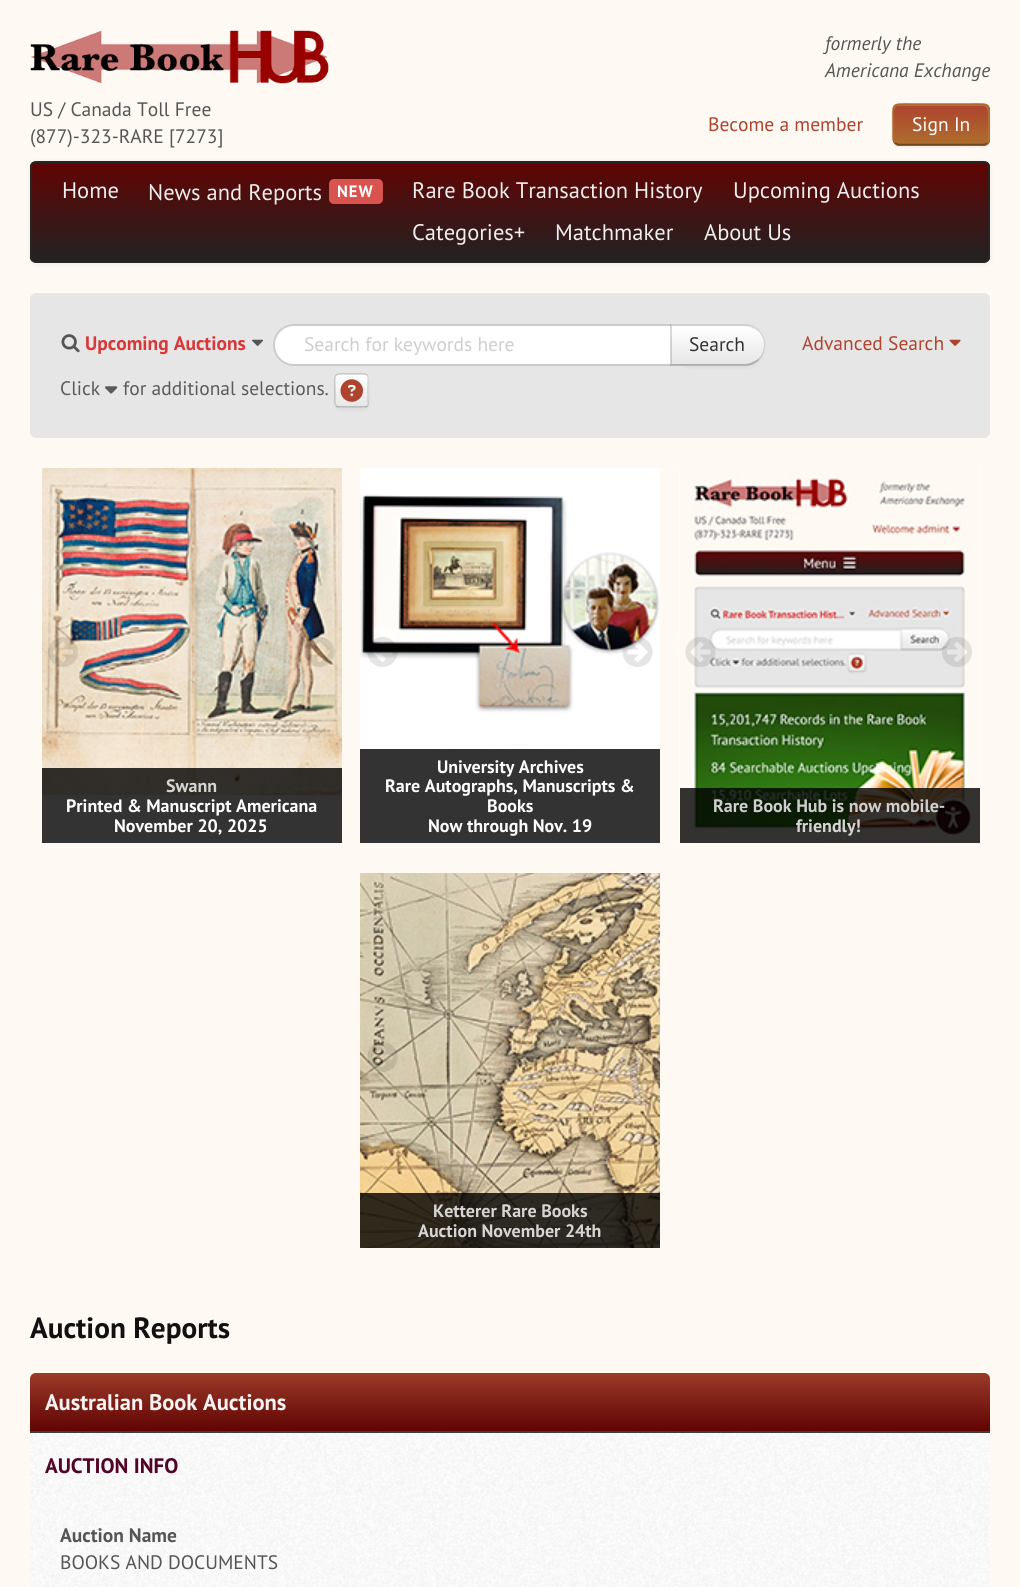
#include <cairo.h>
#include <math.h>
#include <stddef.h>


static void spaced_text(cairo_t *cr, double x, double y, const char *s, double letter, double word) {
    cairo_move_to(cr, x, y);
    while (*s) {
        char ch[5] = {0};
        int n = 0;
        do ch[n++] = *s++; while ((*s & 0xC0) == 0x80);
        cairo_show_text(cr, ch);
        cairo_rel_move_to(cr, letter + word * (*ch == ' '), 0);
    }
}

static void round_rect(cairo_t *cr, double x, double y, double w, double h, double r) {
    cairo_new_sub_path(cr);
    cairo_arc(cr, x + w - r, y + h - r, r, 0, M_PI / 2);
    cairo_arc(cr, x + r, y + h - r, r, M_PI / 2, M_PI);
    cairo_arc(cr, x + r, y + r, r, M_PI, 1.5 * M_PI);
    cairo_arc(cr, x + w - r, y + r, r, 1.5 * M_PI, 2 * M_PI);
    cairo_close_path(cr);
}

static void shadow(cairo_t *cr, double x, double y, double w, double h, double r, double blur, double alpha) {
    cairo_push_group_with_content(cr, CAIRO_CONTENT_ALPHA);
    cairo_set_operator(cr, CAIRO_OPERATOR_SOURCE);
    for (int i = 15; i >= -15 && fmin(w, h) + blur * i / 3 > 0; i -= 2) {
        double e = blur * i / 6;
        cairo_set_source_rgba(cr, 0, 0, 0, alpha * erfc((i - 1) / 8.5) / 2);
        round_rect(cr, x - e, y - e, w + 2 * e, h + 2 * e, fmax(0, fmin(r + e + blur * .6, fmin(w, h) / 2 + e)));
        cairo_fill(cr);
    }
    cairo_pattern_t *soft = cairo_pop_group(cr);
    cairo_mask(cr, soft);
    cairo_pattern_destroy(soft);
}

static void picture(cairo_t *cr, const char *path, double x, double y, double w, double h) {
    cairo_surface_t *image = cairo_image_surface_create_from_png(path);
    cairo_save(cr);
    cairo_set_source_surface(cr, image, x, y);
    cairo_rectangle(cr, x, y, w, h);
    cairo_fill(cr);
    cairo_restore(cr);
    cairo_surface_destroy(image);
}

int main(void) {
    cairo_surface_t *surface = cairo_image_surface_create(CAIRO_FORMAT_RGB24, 1020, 1587);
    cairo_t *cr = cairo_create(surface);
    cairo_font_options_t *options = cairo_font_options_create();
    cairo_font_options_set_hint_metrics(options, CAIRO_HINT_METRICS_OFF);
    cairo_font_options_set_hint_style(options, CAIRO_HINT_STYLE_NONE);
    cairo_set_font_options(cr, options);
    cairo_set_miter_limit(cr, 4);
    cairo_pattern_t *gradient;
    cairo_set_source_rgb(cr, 1, 0.976, 0.957);
    cairo_paint(cr);
    picture(cr, "img1.png", 30, 30, 299, 54);
    cairo_select_font_face(cr, "PT Sans", CAIRO_FONT_SLANT_ITALIC, CAIRO_FONT_WEIGHT_NORMAL);
    cairo_set_font_size(cr, 19.5);
    cairo_set_source_rgb(cr, 0.333, 0.333, 0.333);
    cairo_move_to(cr, 825, 50);
    cairo_show_text(cr, "formerly the");
    cairo_move_to(cr, 825, 77);
    cairo_show_text(cr, "Americana Exchange");
    cairo_select_font_face(cr, "PT Sans", CAIRO_FONT_SLANT_NORMAL, CAIRO_FONT_WEIGHT_NORMAL);
    cairo_move_to(cr, 30, 116);
    cairo_show_text(cr, "US / Canada Toll Free");
    cairo_move_to(cr, 30, 143);
    cairo_show_text(cr, "(877)-323-RARE [7273]");
    cairo_set_source_rgb(cr, 0.682, 0.263, 0.18);
    cairo_move_to(cr, 708, 131);
    cairo_show_text(cr, "Become a member");
    cairo_set_source_rgb(cr, 0, 0, 0);
    shadow(cr, 893, 105, 97, 42, 6, 1.5, 0.05);
    cairo_set_source_rgb(cr, 0.682, 0.329, 0.18);
    round_rect(cr, 893, 104, 97, 42, 6);
    cairo_fill(cr);
    cairo_save(cr);
    round_rect(cr, 893, 104, 97, 42, 6);
    cairo_clip(cr);
    gradient = cairo_pattern_create_linear(941, 105, 941, 144);
    cairo_pattern_add_color_stop_rgba(gradient, 0, 0.682, 0.263, 0.18, 1);
    cairo_pattern_add_color_stop_rgba(gradient, 1, 0.682, 0.431, 0.18, 1);
    cairo_set_source(cr, gradient);
    cairo_pattern_destroy(gradient);
    cairo_rectangle(cr, 893, 105, 97, 39);
    cairo_fill(cr);
    cairo_restore(cr);
    cairo_set_source_rgba(cr, 1, 1, 1, 0.2);
    cairo_new_path(cr);
    cairo_move_to(cr, 898, 106);
    cairo_line_to(cr, 970, 106);
    cairo_curve_to(cr, 989, 106, 988, 104, 988, 121);
    cairo_line_to(cr, 988, 142);
    cairo_curve_to(cr, 989, 141, 989, 140, 989, 139);
    cairo_line_to(cr, 989, 110);
    cairo_curve_to(cr, 989, 107, 987, 105, 984, 105);
    cairo_line_to(cr, 899, 105);
    cairo_curve_to(cr, 896, 105, 894, 107, 894, 110);
    cairo_line_to(cr, 894, 111);
    cairo_curve_to(cr, 894, 109, 896, 106, 898, 106);
    cairo_close_path(cr);
    cairo_fill(cr);
    cairo_new_path(cr);
    cairo_move_to(cr, 987.5, 143);
    cairo_line_to(cr, 984.5, 144.5);
    cairo_line_to(cr, 898, 144.5);
    cairo_line_to(cr, 895, 143);
    cairo_set_source_rgb(cr, 0.443, 0.282, 0.118);
    cairo_set_line_width(cr, 1.5);
    cairo_stroke(cr);
    cairo_new_path(cr);
    cairo_move_to(cr, 895, 143);
    cairo_curve_to(cr, 892.5, 141, 893, 137.5, 893, 134.5);
    cairo_line_to(cr, 893, 124.5);
    cairo_curve_to(cr, 893, 102, 890, 104, 913, 104);
    cairo_line_to(cr, 970, 104);
    cairo_curve_to(cr, 992.5, 104, 989, 102, 989, 124.5);
    cairo_line_to(cr, 989, 134.5);
    cairo_curve_to(cr, 989, 137.5, 990, 141, 987.5, 143);
    cairo_set_source_rgb(cr, 0.682, 0.431, 0.18);
    cairo_stroke(cr);
    cairo_set_source_rgb(cr, 1, 1, 1);
    cairo_move_to(cr, 912, 131);
    cairo_show_text(cr, "Sign In");
    cairo_set_source_rgb(cr, 0, 0, 0);
    shadow(cr, 30, 162, 960, 102, 6, 3, 0.07);
    cairo_save(cr);
    round_rect(cr, 30, 161, 960, 102, 6);
    cairo_clip(cr);
    gradient = cairo_pattern_create_linear(510, 162, 510, 261);
    cairo_pattern_add_color_stop_rgba(gradient, 0, 0.38, 0.016, 0.012, 1);
    cairo_pattern_add_color_stop_rgba(gradient, 1, 0.133, 0.133, 0.133, 1);
    cairo_set_source(cr, gradient);
    cairo_pattern_destroy(gradient);
    cairo_rectangle(cr, 30, 162, 960, 99);
    cairo_fill(cr);
    cairo_restore(cr);
    round_rect(cr, 31, 162, 958, 100, 5);
    cairo_set_source_rgb(cr, 0.145, 0.145, 0.145);
    cairo_set_line_width(cr, 2);
    cairo_stroke(cr);
    cairo_set_font_size(cr, 22.5);
    cairo_set_source_rgb(cr, 0.933, 0.933, 0.933);
    cairo_move_to(cr, 62, 198);
    cairo_show_text(cr, "Home");
    cairo_move_to(cr, 148, 200);
    cairo_show_text(cr, "News and Reports");
    cairo_set_source_rgb(cr, 0.851, 0.325, 0.31);
    round_rect(cr, 329, 179, 54, 25, 5);
    cairo_fill(cr);
    cairo_select_font_face(cr, "PT Sans", CAIRO_FONT_SLANT_NORMAL, CAIRO_FONT_WEIGHT_BOLD);
    cairo_set_font_size(cr, 16.5);
    cairo_set_source_rgb(cr, 1, 1, 1);
    spaced_text(cr, 337, 197, "NEW", 1, 0);
    cairo_select_font_face(cr, "PT Sans", CAIRO_FONT_SLANT_NORMAL, CAIRO_FONT_WEIGHT_NORMAL);
    cairo_set_font_size(cr, 22.5);
    cairo_set_source_rgb(cr, 0.933, 0.933, 0.933);
    cairo_move_to(cr, 412, 198);
    cairo_show_text(cr, "Rare Book Transaction History");
    cairo_move_to(cr, 733, 198);
    cairo_show_text(cr, "Upcoming Auctions");
    cairo_move_to(cr, 412, 240);
    cairo_show_text(cr, "Categories+");
    cairo_move_to(cr, 555, 240);
    cairo_show_text(cr, "Matchmaker");
    cairo_move_to(cr, 704, 240);
    cairo_show_text(cr, "About Us");
    cairo_set_source_rgb(cr, 0.902, 0.902, 0.902);
    round_rect(cr, 30, 293, 960, 145, 6);
    cairo_fill(cr);
    picture(cr, "img2.png", 61, 334, 19, 19);
    cairo_select_font_face(cr, "PT Sans", CAIRO_FONT_SLANT_NORMAL, CAIRO_FONT_WEIGHT_BOLD);
    cairo_set_font_size(cr, 19.5);
    cairo_set_source_rgb(cr, 0.847, 0.216, 0.216);
    cairo_move_to(cr, 85, 350);
    cairo_show_text(cr, "Upcoming Auctions");
    picture(cr, "img3.png", 252, 339, 12, 7);
    cairo_set_source_rgb(cr, 1, 1, 1);
    round_rect(cr, 274, 325, 490, 40, 20);
    cairo_fill_preserve(cr);
    cairo_set_source_rgb(cr, 0.8, 0.8, 0.8);
    cairo_stroke(cr);
    cairo_select_font_face(cr, "PT Sans", CAIRO_FONT_SLANT_NORMAL, CAIRO_FONT_WEIGHT_NORMAL);
    cairo_set_source_rgb(cr, 0.808, 0.808, 0.808);
    cairo_move_to(cr, 304, 351);
    cairo_show_text(cr, "Search for keywords here");
    cairo_set_source_rgb(cr, 0, 0, 0);
    shadow(cr, 671, 326, 94, 42, 21, 1.5, 0.05);
    cairo_set_source_rgb(cr, 0.961, 0.961, 0.961);
    cairo_new_path(cr);
    cairo_move_to(cr, 671, 324);
    cairo_line_to(cr, 744, 324);
    cairo_curve_to(cr, 755.5, 324, 765, 333.5, 765, 345);
    cairo_curve_to(cr, 765, 356.5, 755.5, 366, 744, 366);
    cairo_line_to(cr, 671, 366);
    cairo_close_path(cr);
    cairo_fill(cr);
    cairo_save(cr);
    cairo_new_path(cr);
    cairo_move_to(cr, 671, 324);
    cairo_line_to(cr, 744, 324);
    cairo_curve_to(cr, 755.5, 324, 765, 333.5, 765, 345);
    cairo_curve_to(cr, 765, 356.5, 755.5, 366, 744, 366);
    cairo_line_to(cr, 671, 366);
    cairo_close_path(cr);
    cairo_clip(cr);
    gradient = cairo_pattern_create_linear(718, 326, 718, 365);
    cairo_pattern_add_color_stop_rgba(gradient, 0, 1, 1, 1, 1);
    cairo_pattern_add_color_stop_rgba(gradient, 1, 0.902, 0.902, 0.902, 1);
    cairo_set_source(cr, gradient);
    cairo_pattern_destroy(gradient);
    cairo_rectangle(cr, 671, 326, 94, 39);
    cairo_fill(cr);
    cairo_restore(cr);
    cairo_set_source_rgba(cr, 0, 0, 0, 0.15);
    cairo_new_path(cr);
    cairo_move_to(cr, 670, 324);
    cairo_line_to(cr, 672, 326);
    cairo_line_to(cr, 744, 326);
    cairo_curve_to(cr, 749, 326, 754, 328, 758, 331);
    cairo_line_to(cr, 759, 330);
    cairo_curve_to(cr, 755, 326, 750, 324, 744, 324);
    cairo_close_path(cr);
    cairo_fill(cr);
    cairo_new_path(cr);
    cairo_move_to(cr, 759, 330);
    cairo_curve_to(cr, 767, 338, 767, 352, 759, 360);
    cairo_line_to(cr, 758, 359);
    cairo_curve_to(cr, 766, 351.5, 766, 338.5, 758, 331);
    cairo_close_path(cr);
    cairo_fill(cr);
    cairo_set_source_rgba(cr, 0, 0, 0, 0.25);
    cairo_new_path(cr);
    cairo_move_to(cr, 670, 366);
    cairo_line_to(cr, 744, 366);
    cairo_curve_to(cr, 750, 366, 755, 364, 759, 360);
    cairo_line_to(cr, 758, 359);
    cairo_curve_to(cr, 754, 362, 749, 364, 744, 364);
    cairo_line_to(cr, 672, 364);
    cairo_close_path(cr);
    cairo_fill(cr);
    cairo_set_source_rgba(cr, 0, 0, 0, 0.15);
    cairo_new_path(cr);
    cairo_move_to(cr, 672, 326);
    cairo_line_to(cr, 670, 324);
    cairo_line_to(cr, 670, 366);
    cairo_line_to(cr, 672, 364);
    cairo_close_path(cr);
    cairo_fill(cr);
    cairo_set_source_rgb(cr, 0.2, 0.2, 0.2);
    cairo_move_to(cr, 689, 351);
    cairo_show_text(cr, "Search");
    cairo_set_source_rgb(cr, 0.357, 0.357, 0.357);
    cairo_move_to(cr, 60, 395);
    cairo_show_text(cr, "Click");
    picture(cr, "img4.png", 105, 386, 13, 8);
    cairo_move_to(cr, 123, 395);
    cairo_show_text(cr, "for additional selections.");
    cairo_set_source_rgb(cr, 0, 0, 0);
    shadow(cr, 335, 375, 34, 35, 5, 1.5, 0.05);
    cairo_set_source_rgb(cr, 0.961, 0.961, 0.961);
    round_rect(cr, 335, 374, 34, 34, 5);
    cairo_fill(cr);
    cairo_save(cr);
    round_rect(cr, 335, 374, 34, 34, 5);
    cairo_clip(cr);
    gradient = cairo_pattern_create_linear(352, 375, 352, 407);
    cairo_pattern_add_color_stop_rgba(gradient, 0, 1, 1, 1, 1);
    cairo_pattern_add_color_stop_rgba(gradient, 1, 0.902, 0.902, 0.902, 1);
    cairo_set_source(cr, gradient);
    cairo_pattern_destroy(gradient);
    cairo_rectangle(cr, 335, 375, 34, 32);
    cairo_fill(cr);
    cairo_restore(cr);
    cairo_new_path(cr);
    cairo_move_to(cr, 367, 406);
    cairo_curve_to(cr, 366.5, 407, 365.5, 407, 364.5, 407);
    cairo_line_to(cr, 339, 407);
    cairo_curve_to(cr, 338, 407, 337, 407, 336.5, 406);
    cairo_set_source_rgba(cr, 0, 0, 0, 0.25);
    cairo_set_line_width(cr, 1.5);
    cairo_stroke(cr);
    cairo_new_path(cr);
    cairo_move_to(cr, 336.5, 406);
    cairo_curve_to(cr, 334.5, 404.5, 335, 401.5, 335, 399);
    cairo_line_to(cr, 335, 391);
    cairo_curve_to(cr, 335, 371.5, 332.5, 374, 352, 374);
    cairo_curve_to(cr, 371, 374, 368, 371.5, 368, 391);
    cairo_line_to(cr, 368, 399);
    cairo_curve_to(cr, 368, 401.5, 369, 404.5, 367, 406);
    cairo_set_source_rgba(cr, 0, 0, 0, 0.15);
    cairo_stroke(cr);
    picture(cr, "img5.png", 340, 379, 23, 23);
    cairo_set_source_rgb(cr, 0.682, 0.263, 0.18);
    cairo_move_to(cr, 802, 350);
    cairo_show_text(cr, "Advanced Search");
    picture(cr, "img6.png", 949, 339, 12, 7);
    cairo_set_source_rgb(cr, 1, 1, 1);
    cairo_rectangle(cr, 42, 468, 300, 375);
    cairo_fill(cr);
    picture(cr, "img7.png", 42, 566, 300, 190);
    picture(cr, "img8.png", 42, 468, 300, 328);
    picture(cr, "img9.png", 48, 637, 30, 30);
    picture(cr, "img10.png", 304, 637, 31, 30);
    cairo_set_source_rgba(cr, 0, 0, 0, 0.8);
    cairo_rectangle(cr, 42, 768, 300, 75);
    cairo_fill(cr);
    cairo_select_font_face(cr, "PT Sans", CAIRO_FONT_SLANT_NORMAL, CAIRO_FONT_WEIGHT_BOLD);
    cairo_set_font_size(cr, 18);
    cairo_set_source_rgb(cr, 0.839, 0.835, 0.831);
    cairo_move_to(cr, 166, 792);
    cairo_show_text(cr, "Swann");
    cairo_set_source_rgb(cr, 1, 1, 1);
    cairo_move_to(cr, 66, 812);
    cairo_show_text(cr, "Printed & Manuscript Americana");
    cairo_move_to(cr, 114, 832);
    cairo_show_text(cr, "November 20, 2025");
    cairo_rectangle(cr, 360, 468, 300, 98);
    cairo_fill(cr);
    picture(cr, "img11.png", 360, 566, 300, 180);
    picture(cr, "img12.png", 360, 494, 300, 255);
    picture(cr, "img13.png", 367, 637, 31, 30);
    picture(cr, "img14.png", 622, 637, 31, 30);
    cairo_set_source_rgb(cr, 0.2, 0.2, 0.2);
    cairo_rectangle(cr, 360, 749, 300, 94);
    cairo_fill(cr);
    cairo_set_source_rgb(cr, 1, 1, 1);
    cairo_move_to(cr, 437, 773);
    cairo_show_text(cr, "University Archives");
    cairo_move_to(cr, 385, 792);
    cairo_show_text(cr, "Rare Autographs, Manuscripts &");
    cairo_move_to(cr, 487, 812);
    cairo_show_text(cr, "Books");
    cairo_move_to(cr, 428, 832);
    cairo_show_text(cr, "Now through Nov. 19");
    cairo_rectangle(cr, 979, 468, 1, 375);
    cairo_fill(cr);
    picture(cr, "img15.png", 679, 468, 301, 375);
    picture(cr, "img16.png", 680, 468, 300, 375);
    picture(cr, "img17.png", 685, 637, 31, 30);
    picture(cr, "img18.png", 942, 637, 30, 30);
    cairo_set_source_rgba(cr, 0, 0, 0, 0.8);
    cairo_rectangle(cr, 680, 788, 300, 55);
    cairo_fill(cr);
    cairo_set_source_rgb(cr, 0.808, 0.808, 0.808);
    cairo_move_to(cr, 713, 812);
    cairo_show_text(cr, "Rare Book Hub is now mobile-");
    cairo_set_source_rgb(cr, 0.839, 0.835, 0.831);
    cairo_move_to(cr, 796, 832);
    cairo_show_text(cr, "friendly!");
    picture(cr, "img19.png", 360, 873, 300, 375);
    picture(cr, "img20.png", 367, 1042, 31, 30);
    picture(cr, "img21.png", 622, 1042, 31, 30);
    cairo_set_source_rgba(cr, 0, 0, 0, 0.8);
    cairo_rectangle(cr, 360, 1193, 300, 55);
    cairo_fill(cr);
    cairo_set_source_rgb(cr, 0.839, 0.835, 0.831);
    cairo_move_to(cr, 433, 1217);
    cairo_show_text(cr, "Ketterer Rare Books");
    cairo_move_to(cr, 418, 1237);
    cairo_show_text(cr, "Auction November 24th");
    cairo_set_font_size(cr, 29.25);
    cairo_set_source_rgb(cr, 0.067, 0.067, 0.067);
    cairo_move_to(cr, 30, 1338);
    cairo_show_text(cr, "Auction Reports");
    picture(cr, "img22.png", 30, 1373, 960, 214);
    cairo_set_source_rgba(cr, 0, 0, 0, 0.75);
    cairo_rectangle(cr, 30, 1431, 960, 2);
    cairo_fill(cr);
    gradient = cairo_pattern_create_linear(510, 1373, 510, 1431);
    cairo_pattern_add_color_stop_rgba(gradient, 0, 0.604, 0.231, 0.161, 1);
    cairo_pattern_add_color_stop_rgba(gradient, 1, 0.38, 0.016, 0.012, 1);
    cairo_set_source(cr, gradient);
    cairo_pattern_destroy(gradient);
    cairo_new_path(cr);
    cairo_move_to(cr, 36, 1373);
    cairo_line_to(cr, 984, 1373);
    cairo_curve_to(cr, 987.5, 1373, 990, 1375.5, 990, 1379);
    cairo_line_to(cr, 990, 1431);
    cairo_line_to(cr, 30, 1431);
    cairo_line_to(cr, 30, 1379);
    cairo_curve_to(cr, 30, 1375.5, 32.5, 1373, 36, 1373);
    cairo_close_path(cr);
    cairo_fill(cr);
    cairo_set_font_size(cr, 22.5);
    cairo_set_source_rgb(cr, 0.973, 0.957, 0.953);
    cairo_move_to(cr, 45, 1410);
    cairo_show_text(cr, "Australian Book Auctions");
    cairo_set_font_size(cr, 21);
    cairo_set_source_rgb(cr, 0.322, 0.012, 0.153);
    cairo_move_to(cr, 45, 1473);
    cairo_show_text(cr, "AUCTION INFO");
    cairo_set_font_size(cr, 19.5);
    cairo_set_source_rgb(cr, 0.333, 0.333, 0.333);
    cairo_move_to(cr, 60, 1542);
    cairo_show_text(cr, "Auction Name");
    cairo_select_font_face(cr, "PT Sans", CAIRO_FONT_SLANT_NORMAL, CAIRO_FONT_WEIGHT_NORMAL);
    cairo_move_to(cr, 60, 1569);
    cairo_show_text(cr, "BOOKS AND DOCUMENTS");
    cairo_surface_write_to_png(surface, "page.png");
    cairo_font_options_destroy(options);
    cairo_destroy(cr);
    cairo_surface_destroy(surface);
    return 0;
}
